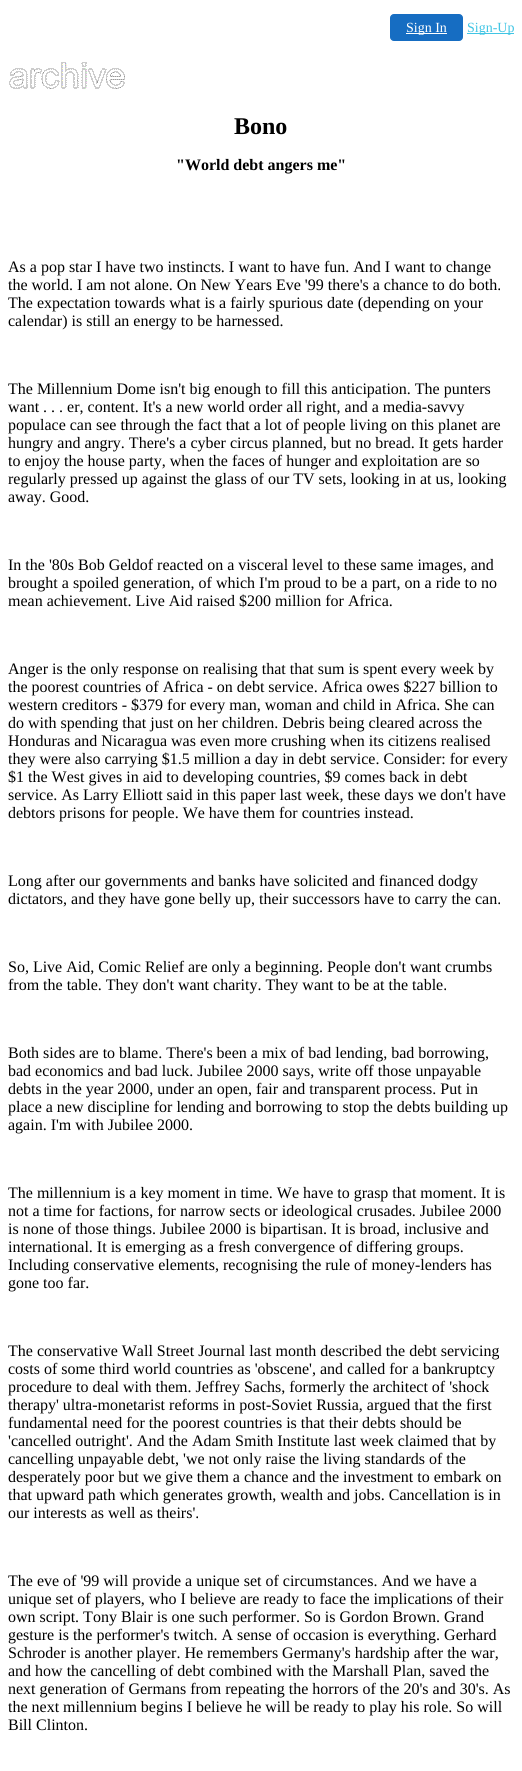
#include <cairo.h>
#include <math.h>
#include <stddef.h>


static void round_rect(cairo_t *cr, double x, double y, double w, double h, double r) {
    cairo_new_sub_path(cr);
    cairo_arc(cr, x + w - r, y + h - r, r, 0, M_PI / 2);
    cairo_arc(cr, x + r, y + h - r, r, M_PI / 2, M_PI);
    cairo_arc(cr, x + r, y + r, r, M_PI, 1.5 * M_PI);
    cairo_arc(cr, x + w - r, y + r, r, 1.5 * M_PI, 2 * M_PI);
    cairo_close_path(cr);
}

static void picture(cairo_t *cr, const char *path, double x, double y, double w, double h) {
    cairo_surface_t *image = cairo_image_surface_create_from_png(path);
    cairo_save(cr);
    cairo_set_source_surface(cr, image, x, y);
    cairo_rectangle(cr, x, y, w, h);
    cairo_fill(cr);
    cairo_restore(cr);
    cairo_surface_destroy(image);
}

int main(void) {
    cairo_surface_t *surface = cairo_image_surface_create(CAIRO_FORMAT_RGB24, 522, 1771);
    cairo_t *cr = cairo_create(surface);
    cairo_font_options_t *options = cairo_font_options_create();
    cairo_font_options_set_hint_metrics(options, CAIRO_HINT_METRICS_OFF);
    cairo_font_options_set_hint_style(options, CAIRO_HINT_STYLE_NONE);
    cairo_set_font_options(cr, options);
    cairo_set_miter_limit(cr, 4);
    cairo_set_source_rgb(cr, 1, 1, 1);
    cairo_paint(cr);
    cairo_set_source_rgb(cr, 0.086, 0.427, 0.761);
    round_rect(cr, 390.5, 14.5, 72, 26, 3.5);
    cairo_fill_preserve(cr);
    cairo_set_line_width(cr, 1);
    cairo_stroke(cr);
    cairo_set_source_rgb(cr, 1, 1, 1);
    cairo_rectangle(cr, 406, 33, 41, 1);
    cairo_fill(cr);
    cairo_select_font_face(cr, "Liberation Serif", CAIRO_FONT_SLANT_NORMAL, CAIRO_FONT_WEIGHT_NORMAL);
    cairo_set_font_size(cr, 14);
    cairo_move_to(cr, 406, 32);
    cairo_show_text(cr, "Sign In");
    cairo_set_source_rgb(cr, 0.255, 0.773, 0.894);
    cairo_rectangle(cr, 467, 33, 47, 1);
    cairo_fill(cr);
    cairo_move_to(cr, 467, 32);
    cairo_show_text(cr, "Sign-Up");
    picture(cr, "img1.png", 9, 62, 116, 27);
    cairo_select_font_face(cr, "Liberation Serif", CAIRO_FONT_SLANT_NORMAL, CAIRO_FONT_WEIGHT_BOLD);
    cairo_set_font_size(cr, 24);
    cairo_set_source_rgb(cr, 0, 0, 0);
    cairo_move_to(cr, 234, 134);
    cairo_show_text(cr, "Bono");
    cairo_set_font_size(cr, 16);
    cairo_move_to(cr, 176, 170);
    cairo_show_text(cr, "\"World debt angers me\"");
    cairo_select_font_face(cr, "Liberation Serif", CAIRO_FONT_SLANT_NORMAL, CAIRO_FONT_WEIGHT_NORMAL);
    cairo_move_to(cr, 8, 272);
    cairo_show_text(cr, "As a pop star I have two instincts. I want to have fun. And I want to change");
    cairo_move_to(cr, 8, 290);
    cairo_show_text(cr, "the world. I am not alone. On New Years Eve '99 there's a chance to do both.");
    cairo_move_to(cr, 8, 308);
    cairo_show_text(cr, "The expectation towards what is a fairly spurious date (depending on your");
    cairo_move_to(cr, 8, 326);
    cairo_show_text(cr, "calendar) is still an energy to be harnessed.");
    cairo_move_to(cr, 8, 394);
    cairo_show_text(cr, "The Millennium Dome isn't big enough to fill this anticipation. The punters");
    cairo_move_to(cr, 8, 412);
    cairo_show_text(cr, "want . . . er, content. It's a new world order all right, and a media-savvy");
    cairo_move_to(cr, 8, 430);
    cairo_show_text(cr, "populace can see through the fact that a lot of people living on this planet are");
    cairo_move_to(cr, 8, 448);
    cairo_show_text(cr, "hungry and angry. There's a cyber circus planned, but no bread. It gets harder");
    cairo_move_to(cr, 8, 466);
    cairo_show_text(cr, "to enjoy the house party, when the faces of hunger and exploitation are so");
    cairo_move_to(cr, 8, 484);
    cairo_show_text(cr, "regularly pressed up against the glass of our TV sets, looking in at us, looking");
    cairo_move_to(cr, 8, 502);
    cairo_show_text(cr, "away. Good.");
    cairo_move_to(cr, 8, 570);
    cairo_show_text(cr, "In the '80s Bob Geldof reacted on a visceral level to these same images, and");
    cairo_move_to(cr, 8, 588);
    cairo_show_text(cr, "brought a spoiled generation, of which I'm proud to be a part, on a ride to no");
    cairo_move_to(cr, 8, 606);
    cairo_show_text(cr, "mean achievement. Live Aid raised $200 million for Africa.");
    cairo_move_to(cr, 8, 674);
    cairo_show_text(cr, "Anger is the only response on realising that that sum is spent every week by");
    cairo_move_to(cr, 8, 692);
    cairo_show_text(cr, "the poorest countries of Africa - on debt service. Africa owes $227 billion to");
    cairo_move_to(cr, 8, 710);
    cairo_show_text(cr, "western creditors - $379 for every man, woman and child in Africa. She can");
    cairo_move_to(cr, 8, 728);
    cairo_show_text(cr, "do with spending that just on her children. Debris being cleared across the");
    cairo_move_to(cr, 8, 746);
    cairo_show_text(cr, "Honduras and Nicaragua was even more crushing when its citizens realised");
    cairo_move_to(cr, 8, 764);
    cairo_show_text(cr, "they were also carrying $1.5 million a day in debt service. Consider: for every");
    cairo_move_to(cr, 8, 782);
    cairo_show_text(cr, "$1 the West gives in aid to developing countries, $9 comes back in debt");
    cairo_move_to(cr, 8, 800);
    cairo_show_text(cr, "service. As Larry Elliott said in this paper last week, these days we don't have");
    cairo_move_to(cr, 8, 818);
    cairo_show_text(cr, "debtors prisons for people. We have them for countries instead.");
    cairo_move_to(cr, 8, 886);
    cairo_show_text(cr, "Long after our governments and banks have solicited and financed dodgy");
    cairo_move_to(cr, 8, 904);
    cairo_show_text(cr, "dictators, and they have gone belly up, their successors have to carry the can.");
    cairo_move_to(cr, 8, 972);
    cairo_show_text(cr, "So, Live Aid, Comic Relief are only a beginning. People don't want crumbs");
    cairo_move_to(cr, 8, 990);
    cairo_show_text(cr, "from the table. They don't want charity. They want to be at the table.");
    cairo_move_to(cr, 8, 1058);
    cairo_show_text(cr, "Both sides are to blame. There's been a mix of bad lending, bad borrowing,");
    cairo_move_to(cr, 8, 1076);
    cairo_show_text(cr, "bad economics and bad luck. Jubilee 2000 says, write off those unpayable");
    cairo_move_to(cr, 8, 1094);
    cairo_show_text(cr, "debts in the year 2000, under an open, fair and transparent process. Put in");
    cairo_move_to(cr, 8, 1112);
    cairo_show_text(cr, "place a new discipline for lending and borrowing to stop the debts building up");
    cairo_move_to(cr, 8, 1130);
    cairo_show_text(cr, "again. I'm with Jubilee 2000.");
    cairo_move_to(cr, 8, 1198);
    cairo_show_text(cr, "The millennium is a key moment in time. We have to grasp that moment. It is");
    cairo_move_to(cr, 8, 1216);
    cairo_show_text(cr, "not a time for factions, for narrow sects or ideological crusades. Jubilee 2000");
    cairo_move_to(cr, 8, 1234);
    cairo_show_text(cr, "is none of those things. Jubilee 2000 is bipartisan. It is broad, inclusive and");
    cairo_move_to(cr, 8, 1252);
    cairo_show_text(cr, "international. It is emerging as a fresh convergence of differing groups.");
    cairo_move_to(cr, 8, 1270);
    cairo_show_text(cr, "Including conservative elements, recognising the rule of money-lenders has");
    cairo_move_to(cr, 8, 1288);
    cairo_show_text(cr, "gone too far.");
    cairo_move_to(cr, 8, 1356);
    cairo_show_text(cr, "The conservative Wall Street Journal last month described the debt servicing");
    cairo_move_to(cr, 8, 1374);
    cairo_show_text(cr, "costs of some third world countries as 'obscene', and called for a bankruptcy");
    cairo_move_to(cr, 8, 1392);
    cairo_show_text(cr, "procedure to deal with them. Jeffrey Sachs, formerly the architect of 'shock");
    cairo_move_to(cr, 8, 1410);
    cairo_show_text(cr, "therapy' ultra-monetarist reforms in post-Soviet Russia, argued that the first");
    cairo_move_to(cr, 8, 1428);
    cairo_show_text(cr, "fundamental need for the poorest countries is that their debts should be");
    cairo_move_to(cr, 8, 1446);
    cairo_show_text(cr, "'cancelled outright'. And the Adam Smith Institute last week claimed that by");
    cairo_move_to(cr, 8, 1464);
    cairo_show_text(cr, "cancelling unpayable debt, 'we not only raise the living standards of the");
    cairo_move_to(cr, 8, 1482);
    cairo_show_text(cr, "desperately poor but we give them a chance and the investment to embark on");
    cairo_move_to(cr, 8, 1500);
    cairo_show_text(cr, "that upward path which generates growth, wealth and jobs. Cancellation is in");
    cairo_move_to(cr, 8, 1518);
    cairo_show_text(cr, "our interests as well as theirs'.");
    cairo_move_to(cr, 8, 1586);
    cairo_show_text(cr, "The eve of '99 will provide a unique set of circumstances. And we have a");
    cairo_move_to(cr, 8, 1604);
    cairo_show_text(cr, "unique set of players, who I believe are ready to face the implications of their");
    cairo_move_to(cr, 8, 1622);
    cairo_show_text(cr, "own script. Tony Blair is one such performer. So is Gordon Brown. Grand");
    cairo_move_to(cr, 8, 1640);
    cairo_show_text(cr, "gesture is the performer's twitch. A sense of occasion is everything. Gerhard");
    cairo_move_to(cr, 8, 1658);
    cairo_show_text(cr, "Schroder is another player. He remembers Germany's hardship after the war,");
    cairo_move_to(cr, 8, 1676);
    cairo_show_text(cr, "and how the cancelling of debt combined with the Marshall Plan, saved the");
    cairo_move_to(cr, 8, 1694);
    cairo_show_text(cr, "next generation of Germans from repeating the horrors of the 20's and 30's. As");
    cairo_move_to(cr, 8, 1712);
    cairo_show_text(cr, "the next millennium begins I believe he will be ready to play his role. So will");
    cairo_move_to(cr, 8, 1730);
    cairo_show_text(cr, "Bill Clinton.");
    cairo_surface_write_to_png(surface, "page.png");
    cairo_font_options_destroy(options);
    cairo_destroy(cr);
    cairo_surface_destroy(surface);
    return 0;
}
